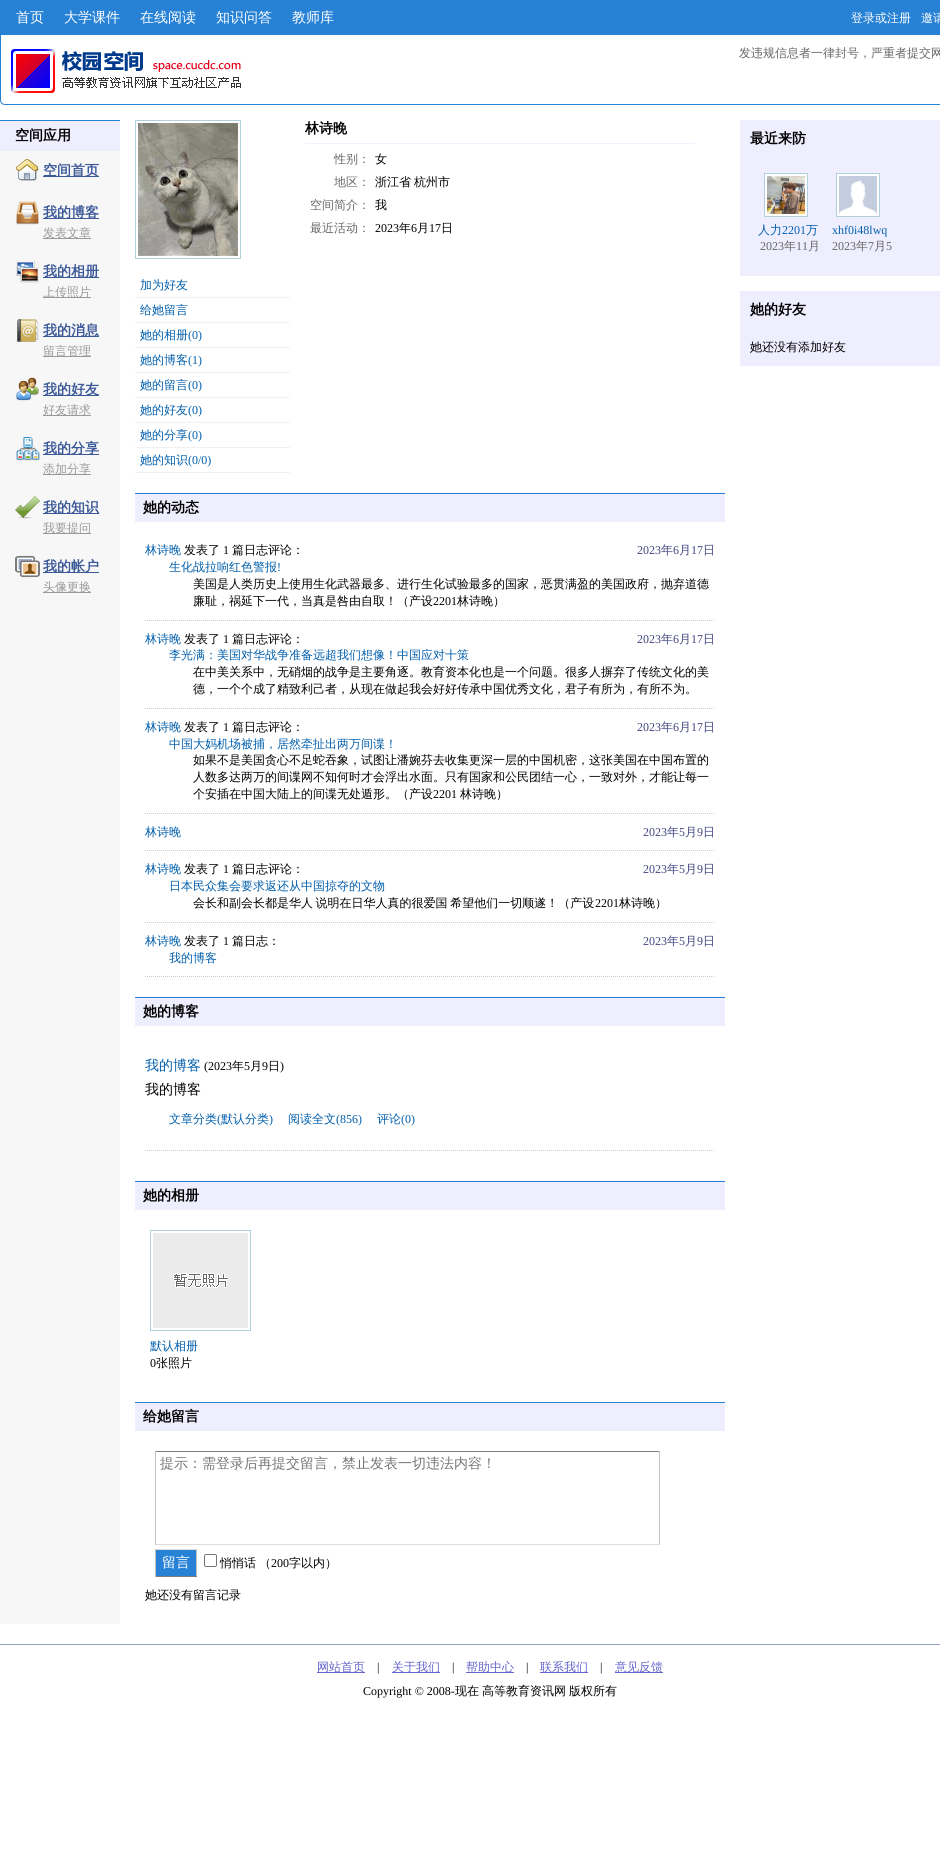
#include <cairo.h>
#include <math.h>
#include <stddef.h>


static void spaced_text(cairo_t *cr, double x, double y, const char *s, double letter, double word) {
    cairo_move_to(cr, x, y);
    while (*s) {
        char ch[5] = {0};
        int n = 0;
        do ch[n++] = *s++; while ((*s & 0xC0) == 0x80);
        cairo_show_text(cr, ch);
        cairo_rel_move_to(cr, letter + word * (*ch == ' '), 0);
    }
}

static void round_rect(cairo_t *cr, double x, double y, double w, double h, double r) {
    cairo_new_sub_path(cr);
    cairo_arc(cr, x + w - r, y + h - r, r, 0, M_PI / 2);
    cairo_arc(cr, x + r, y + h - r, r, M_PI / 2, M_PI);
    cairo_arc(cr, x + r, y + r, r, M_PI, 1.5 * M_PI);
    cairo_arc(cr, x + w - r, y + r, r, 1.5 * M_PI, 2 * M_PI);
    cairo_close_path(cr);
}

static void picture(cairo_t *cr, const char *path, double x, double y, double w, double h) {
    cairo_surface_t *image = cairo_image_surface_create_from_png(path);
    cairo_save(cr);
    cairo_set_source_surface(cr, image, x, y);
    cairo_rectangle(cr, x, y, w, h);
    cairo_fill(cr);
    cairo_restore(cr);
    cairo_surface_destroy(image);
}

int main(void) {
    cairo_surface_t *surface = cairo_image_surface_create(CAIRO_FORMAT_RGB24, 940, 1863);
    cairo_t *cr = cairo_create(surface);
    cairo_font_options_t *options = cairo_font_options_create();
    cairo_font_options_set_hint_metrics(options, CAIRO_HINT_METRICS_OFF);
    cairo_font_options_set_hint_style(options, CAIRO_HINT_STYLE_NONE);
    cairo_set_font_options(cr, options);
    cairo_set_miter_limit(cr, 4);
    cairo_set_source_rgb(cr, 1, 1, 1);
    cairo_paint(cr);
    cairo_new_path(cr);
    cairo_move_to(cr, 0.5, 0.5);
    cairo_line_to(cr, 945.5, 0.5);
    cairo_line_to(cr, 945.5, 100);
    cairo_curve_to(cr, 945.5, 102.5, 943.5, 104.5, 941, 104.5);
    cairo_line_to(cr, 5, 104.5);
    cairo_curve_to(cr, 2.5, 104.5, 0.5, 102.5, 0.5, 100);
    cairo_close_path(cr);
    cairo_set_source_rgb(cr, 0.153, 0.51, 0.839);
    cairo_set_line_width(cr, 1);
    cairo_stroke(cr);
    cairo_rectangle(cr, 1, 1, 939, 34);
    cairo_fill(cr);
    cairo_select_font_face(cr, "WenQuanYi Zen Hei Medium", CAIRO_FONT_SLANT_NORMAL, CAIRO_FONT_WEIGHT_NORMAL);
    cairo_set_font_size(cr, 14);
    cairo_set_source_rgb(cr, 1, 1, 1);
    cairo_move_to(cr, 16, 22);
    cairo_show_text(cr, "首页");
    cairo_move_to(cr, 64, 22);
    cairo_show_text(cr, "大学课件");
    cairo_move_to(cr, 140, 22);
    cairo_show_text(cr, "在线阅读");
    cairo_move_to(cr, 216, 22);
    cairo_show_text(cr, "知识问答");
    cairo_move_to(cr, 292, 22);
    cairo_show_text(cr, "教师库");
    cairo_set_font_size(cr, 12);
    cairo_move_to(cr, 851, 22);
    cairo_show_text(cr, "登录或注册");
    cairo_move_to(cr, 921, 22);
    cairo_show_text(cr, "邀请");
    picture(cr, "img1.png", 11, 49, 230, 44);
    cairo_set_source_rgb(cr, 0.4, 0.4, 0.4);
    cairo_move_to(cr, 739, 57);
    cairo_show_text(cr, "发违规信息者一律封号，严重者提交网");
    cairo_set_source_rgb(cr, 0.965, 0.965, 0.965);
    cairo_rectangle(cr, 0, 151, 120, 1473);
    cairo_fill(cr);
    cairo_set_source_rgb(cr, 0.937, 0.933, 1);
    cairo_rectangle(cr, 0, 121, 120, 30);
    cairo_fill(cr);
    cairo_set_source_rgb(cr, 0.153, 0.51, 0.839);
    cairo_rectangle(cr, 0, 120, 120, 1);
    cairo_fill(cr);
    cairo_select_font_face(cr, "WenQuanYi Zen Hei", CAIRO_FONT_SLANT_NORMAL, CAIRO_FONT_WEIGHT_BOLD);
    cairo_set_font_size(cr, 14);
    cairo_set_source_rgb(cr, 0, 0, 0);
    cairo_move_to(cr, 15, 140);
    cairo_show_text(cr, "空间应用");
    picture(cr, "img2.png", 16, 159, 23, 22);
    cairo_set_source_rgb(cr, 0.231, 0.349, 0.596);
    cairo_rectangle(cr, 43, 176, 56, 1);
    cairo_fill(cr);
    cairo_move_to(cr, 43, 175);
    cairo_show_text(cr, "空间首页");
    picture(cr, "img3.png", 16, 201, 23, 24);
    cairo_rectangle(cr, 43, 218, 56, 1);
    cairo_fill(cr);
    cairo_move_to(cr, 43, 217);
    cairo_show_text(cr, "我的博客");
    cairo_set_source_rgb(cr, 0.6, 0.6, 0.6);
    cairo_rectangle(cr, 43, 238, 48, 1);
    cairo_fill(cr);
    cairo_select_font_face(cr, "WenQuanYi Zen Hei Medium", CAIRO_FONT_SLANT_NORMAL, CAIRO_FONT_WEIGHT_NORMAL);
    cairo_set_font_size(cr, 12);
    cairo_move_to(cr, 43, 237);
    cairo_show_text(cr, "发表文章");
    picture(cr, "img4.png", 16, 261, 23, 22);
    cairo_set_source_rgb(cr, 0.231, 0.349, 0.596);
    cairo_rectangle(cr, 43, 277, 56, 1);
    cairo_fill(cr);
    cairo_select_font_face(cr, "WenQuanYi Zen Hei", CAIRO_FONT_SLANT_NORMAL, CAIRO_FONT_WEIGHT_BOLD);
    cairo_set_font_size(cr, 14);
    cairo_move_to(cr, 43, 276);
    cairo_show_text(cr, "我的相册");
    cairo_set_source_rgb(cr, 0.6, 0.6, 0.6);
    cairo_rectangle(cr, 43, 297, 48, 1);
    cairo_fill(cr);
    cairo_select_font_face(cr, "WenQuanYi Zen Hei Medium", CAIRO_FONT_SLANT_NORMAL, CAIRO_FONT_WEIGHT_NORMAL);
    cairo_set_font_size(cr, 12);
    cairo_move_to(cr, 43, 296);
    cairo_show_text(cr, "上传照片");
    picture(cr, "img5.png", 16, 319, 23, 23);
    cairo_set_source_rgb(cr, 0.231, 0.349, 0.596);
    cairo_rectangle(cr, 43, 336, 56, 1);
    cairo_fill(cr);
    cairo_select_font_face(cr, "WenQuanYi Zen Hei", CAIRO_FONT_SLANT_NORMAL, CAIRO_FONT_WEIGHT_BOLD);
    cairo_set_font_size(cr, 14);
    cairo_move_to(cr, 43, 335);
    cairo_show_text(cr, "我的消息");
    cairo_set_source_rgb(cr, 0.6, 0.6, 0.6);
    cairo_rectangle(cr, 43, 356, 48, 1);
    cairo_fill(cr);
    cairo_select_font_face(cr, "WenQuanYi Zen Hei Medium", CAIRO_FONT_SLANT_NORMAL, CAIRO_FONT_WEIGHT_NORMAL);
    cairo_set_font_size(cr, 12);
    cairo_move_to(cr, 43, 355);
    cairo_show_text(cr, "留言管理");
    picture(cr, "img6.png", 16, 377, 23, 24);
    cairo_set_source_rgb(cr, 0.231, 0.349, 0.596);
    cairo_rectangle(cr, 43, 395, 56, 1);
    cairo_fill(cr);
    cairo_select_font_face(cr, "WenQuanYi Zen Hei", CAIRO_FONT_SLANT_NORMAL, CAIRO_FONT_WEIGHT_BOLD);
    cairo_set_font_size(cr, 14);
    cairo_move_to(cr, 43, 394);
    cairo_show_text(cr, "我的好友");
    cairo_set_source_rgb(cr, 0.6, 0.6, 0.6);
    cairo_rectangle(cr, 43, 415, 48, 1);
    cairo_fill(cr);
    cairo_select_font_face(cr, "WenQuanYi Zen Hei Medium", CAIRO_FONT_SLANT_NORMAL, CAIRO_FONT_WEIGHT_NORMAL);
    cairo_set_font_size(cr, 12);
    cairo_move_to(cr, 43, 414);
    cairo_show_text(cr, "好友请求");
    picture(cr, "img7.png", 16, 437, 24, 24);
    cairo_set_source_rgb(cr, 0.231, 0.349, 0.596);
    cairo_rectangle(cr, 43, 454, 56, 1);
    cairo_fill(cr);
    cairo_select_font_face(cr, "WenQuanYi Zen Hei", CAIRO_FONT_SLANT_NORMAL, CAIRO_FONT_WEIGHT_BOLD);
    cairo_set_font_size(cr, 14);
    cairo_move_to(cr, 43, 453);
    cairo_show_text(cr, "我的分享");
    cairo_set_source_rgb(cr, 0.6, 0.6, 0.6);
    cairo_rectangle(cr, 43, 474, 48, 1);
    cairo_fill(cr);
    cairo_select_font_face(cr, "WenQuanYi Zen Hei Medium", CAIRO_FONT_SLANT_NORMAL, CAIRO_FONT_WEIGHT_NORMAL);
    cairo_set_font_size(cr, 12);
    cairo_move_to(cr, 43, 473);
    cairo_show_text(cr, "添加分享");
    picture(cr, "img8.png", 15, 496, 25, 23);
    cairo_set_source_rgb(cr, 0.231, 0.349, 0.596);
    cairo_rectangle(cr, 43, 513, 56, 1);
    cairo_fill(cr);
    cairo_select_font_face(cr, "WenQuanYi Zen Hei", CAIRO_FONT_SLANT_NORMAL, CAIRO_FONT_WEIGHT_BOLD);
    cairo_set_font_size(cr, 14);
    cairo_move_to(cr, 43, 512);
    cairo_show_text(cr, "我的知识");
    cairo_set_source_rgb(cr, 0.6, 0.6, 0.6);
    cairo_rectangle(cr, 43, 533, 48, 1);
    cairo_fill(cr);
    cairo_select_font_face(cr, "WenQuanYi Zen Hei Medium", CAIRO_FONT_SLANT_NORMAL, CAIRO_FONT_WEIGHT_NORMAL);
    cairo_set_font_size(cr, 12);
    cairo_move_to(cr, 43, 532);
    cairo_show_text(cr, "我要提问");
    picture(cr, "img9.png", 15, 555, 25, 23);
    cairo_set_source_rgb(cr, 0.231, 0.349, 0.596);
    cairo_rectangle(cr, 43, 572, 56, 1);
    cairo_fill(cr);
    cairo_select_font_face(cr, "WenQuanYi Zen Hei", CAIRO_FONT_SLANT_NORMAL, CAIRO_FONT_WEIGHT_BOLD);
    cairo_set_font_size(cr, 14);
    cairo_move_to(cr, 43, 571);
    cairo_show_text(cr, "我的帐户");
    cairo_set_source_rgb(cr, 0.6, 0.6, 0.6);
    cairo_rectangle(cr, 43, 592, 48, 1);
    cairo_fill(cr);
    cairo_select_font_face(cr, "WenQuanYi Zen Hei Medium", CAIRO_FONT_SLANT_NORMAL, CAIRO_FONT_WEIGHT_NORMAL);
    cairo_set_font_size(cr, 12);
    cairo_move_to(cr, 43, 591);
    cairo_show_text(cr, "头像更换");
    cairo_set_source_rgb(cr, 0.941, 0.941, 1);
    cairo_rectangle(cr, 305, 143, 390, 1);
    cairo_fill(cr);
    cairo_select_font_face(cr, "WenQuanYi Zen Hei", CAIRO_FONT_SLANT_NORMAL, CAIRO_FONT_WEIGHT_BOLD);
    cairo_set_font_size(cr, 14);
    cairo_set_source_rgb(cr, 0, 0, 0);
    cairo_move_to(cr, 305, 133);
    cairo_show_text(cr, "林诗晚");
    cairo_select_font_face(cr, "WenQuanYi Zen Hei Medium", CAIRO_FONT_SLANT_NORMAL, CAIRO_FONT_WEIGHT_NORMAL);
    cairo_set_font_size(cr, 12);
    cairo_set_source_rgb(cr, 0.4, 0.4, 0.4);
    cairo_move_to(cr, 334, 163);
    cairo_show_text(cr, "性别：");
    cairo_set_source_rgb(cr, 0, 0, 0);
    cairo_move_to(cr, 375, 163);
    cairo_show_text(cr, "女");
    cairo_set_source_rgb(cr, 0.4, 0.4, 0.4);
    cairo_move_to(cr, 334, 186);
    cairo_show_text(cr, "地区：");
    cairo_set_source_rgb(cr, 0, 0, 0);
    cairo_move_to(cr, 375, 186);
    cairo_show_text(cr, "浙江省");
    cairo_move_to(cr, 414, 186);
    cairo_show_text(cr, "杭州市");
    cairo_set_source_rgb(cr, 0.4, 0.4, 0.4);
    cairo_move_to(cr, 310, 209);
    cairo_show_text(cr, "空间简介：");
    cairo_set_source_rgb(cr, 0, 0, 0);
    cairo_move_to(cr, 375, 209);
    cairo_show_text(cr, "我");
    cairo_set_source_rgb(cr, 0.4, 0.4, 0.4);
    cairo_move_to(cr, 310, 232);
    cairo_show_text(cr, "最近活动：");
    cairo_select_font_face(cr, "Liberation Serif", CAIRO_FONT_SLANT_NORMAL, CAIRO_FONT_WEIGHT_NORMAL);
    cairo_set_source_rgb(cr, 0, 0, 0);
    cairo_move_to(cr, 375, 232);
    cairo_show_text(cr, "2023");
    cairo_select_font_face(cr, "WenQuanYi Zen Hei Medium", CAIRO_FONT_SLANT_NORMAL, CAIRO_FONT_WEIGHT_NORMAL);
    cairo_move_to(cr, 399, 232);
    cairo_show_text(cr, "年");
    cairo_select_font_face(cr, "Liberation Serif", CAIRO_FONT_SLANT_NORMAL, CAIRO_FONT_WEIGHT_NORMAL);
    cairo_move_to(cr, 411, 232);
    cairo_show_text(cr, "6");
    cairo_select_font_face(cr, "WenQuanYi Zen Hei Medium", CAIRO_FONT_SLANT_NORMAL, CAIRO_FONT_WEIGHT_NORMAL);
    cairo_move_to(cr, 417, 232);
    cairo_show_text(cr, "月");
    cairo_select_font_face(cr, "Liberation Serif", CAIRO_FONT_SLANT_NORMAL, CAIRO_FONT_WEIGHT_NORMAL);
    cairo_move_to(cr, 429, 232);
    cairo_show_text(cr, "17");
    cairo_select_font_face(cr, "WenQuanYi Zen Hei Medium", CAIRO_FONT_SLANT_NORMAL, CAIRO_FONT_WEIGHT_NORMAL);
    cairo_move_to(cr, 441, 232);
    cairo_show_text(cr, "日");
    cairo_rectangle(cr, 135.5, 120.5, 105, 138);
    cairo_set_source_rgb(cr, 0.694, 0.812, 0.871);
    cairo_stroke(cr);
    picture(cr, "img10.png", 138, 123, 100, 133);
    cairo_set_source_rgb(cr, 0.945, 0.945, 0.945);
    cairo_rectangle(cr, 135, 297, 155, 1);
    cairo_fill(cr);
    cairo_set_source_rgb(cr, 0, 0.369, 0.675);
    cairo_move_to(cr, 140, 289);
    cairo_show_text(cr, "加为好友");
    cairo_set_source_rgb(cr, 0.945, 0.945, 0.945);
    cairo_rectangle(cr, 135, 322, 155, 1);
    cairo_fill(cr);
    cairo_set_source_rgb(cr, 0, 0.369, 0.675);
    cairo_move_to(cr, 140, 314);
    cairo_show_text(cr, "给她留言");
    cairo_set_source_rgb(cr, 0.945, 0.945, 0.945);
    cairo_rectangle(cr, 135, 347, 155, 1);
    cairo_fill(cr);
    cairo_set_source_rgb(cr, 0, 0.369, 0.675);
    cairo_move_to(cr, 140, 339);
    cairo_show_text(cr, "她的相册");
    cairo_select_font_face(cr, "Liberation Serif", CAIRO_FONT_SLANT_NORMAL, CAIRO_FONT_WEIGHT_NORMAL);
    cairo_move_to(cr, 188, 339);
    cairo_show_text(cr, "(0)");
    cairo_set_source_rgb(cr, 0.945, 0.945, 0.945);
    cairo_rectangle(cr, 135, 372, 155, 1);
    cairo_fill(cr);
    cairo_select_font_face(cr, "WenQuanYi Zen Hei Medium", CAIRO_FONT_SLANT_NORMAL, CAIRO_FONT_WEIGHT_NORMAL);
    cairo_set_source_rgb(cr, 0, 0.369, 0.675);
    cairo_move_to(cr, 140, 364);
    cairo_show_text(cr, "她的博客");
    cairo_select_font_face(cr, "Liberation Serif", CAIRO_FONT_SLANT_NORMAL, CAIRO_FONT_WEIGHT_NORMAL);
    cairo_move_to(cr, 188, 364);
    cairo_show_text(cr, "(1)");
    cairo_set_source_rgb(cr, 0.945, 0.945, 0.945);
    cairo_rectangle(cr, 135, 397, 155, 1);
    cairo_fill(cr);
    cairo_select_font_face(cr, "WenQuanYi Zen Hei Medium", CAIRO_FONT_SLANT_NORMAL, CAIRO_FONT_WEIGHT_NORMAL);
    cairo_set_source_rgb(cr, 0, 0.369, 0.675);
    cairo_move_to(cr, 140, 389);
    cairo_show_text(cr, "她的留言");
    cairo_select_font_face(cr, "Liberation Serif", CAIRO_FONT_SLANT_NORMAL, CAIRO_FONT_WEIGHT_NORMAL);
    cairo_move_to(cr, 188, 389);
    cairo_show_text(cr, "(0)");
    cairo_set_source_rgb(cr, 0.945, 0.945, 0.945);
    cairo_rectangle(cr, 135, 422, 155, 1);
    cairo_fill(cr);
    cairo_select_font_face(cr, "WenQuanYi Zen Hei Medium", CAIRO_FONT_SLANT_NORMAL, CAIRO_FONT_WEIGHT_NORMAL);
    cairo_set_source_rgb(cr, 0, 0.369, 0.675);
    cairo_move_to(cr, 140, 414);
    cairo_show_text(cr, "她的好友");
    cairo_select_font_face(cr, "Liberation Serif", CAIRO_FONT_SLANT_NORMAL, CAIRO_FONT_WEIGHT_NORMAL);
    cairo_move_to(cr, 188, 414);
    cairo_show_text(cr, "(0)");
    cairo_set_source_rgb(cr, 0.945, 0.945, 0.945);
    cairo_rectangle(cr, 135, 447, 155, 1);
    cairo_fill(cr);
    cairo_select_font_face(cr, "WenQuanYi Zen Hei Medium", CAIRO_FONT_SLANT_NORMAL, CAIRO_FONT_WEIGHT_NORMAL);
    cairo_set_source_rgb(cr, 0, 0.369, 0.675);
    cairo_move_to(cr, 140, 439);
    cairo_show_text(cr, "她的分享");
    cairo_select_font_face(cr, "Liberation Serif", CAIRO_FONT_SLANT_NORMAL, CAIRO_FONT_WEIGHT_NORMAL);
    cairo_move_to(cr, 188, 439);
    cairo_show_text(cr, "(0)");
    cairo_set_source_rgb(cr, 0.945, 0.945, 0.945);
    cairo_rectangle(cr, 135, 472, 155, 1);
    cairo_fill(cr);
    cairo_select_font_face(cr, "WenQuanYi Zen Hei Medium", CAIRO_FONT_SLANT_NORMAL, CAIRO_FONT_WEIGHT_NORMAL);
    cairo_set_source_rgb(cr, 0, 0.369, 0.675);
    cairo_move_to(cr, 140, 464);
    cairo_show_text(cr, "她的知识");
    cairo_select_font_face(cr, "Liberation Serif", CAIRO_FONT_SLANT_NORMAL, CAIRO_FONT_WEIGHT_NORMAL);
    cairo_move_to(cr, 188, 464);
    cairo_show_text(cr, "(0/0)");
    cairo_set_source_rgb(cr, 0.937, 0.933, 1);
    cairo_rectangle(cr, 135, 494, 590, 28);
    cairo_fill(cr);
    cairo_set_source_rgb(cr, 0.153, 0.51, 0.839);
    cairo_rectangle(cr, 135, 493, 590, 1);
    cairo_fill(cr);
    cairo_select_font_face(cr, "WenQuanYi Zen Hei", CAIRO_FONT_SLANT_NORMAL, CAIRO_FONT_WEIGHT_BOLD);
    cairo_set_font_size(cr, 14);
    cairo_set_source_rgb(cr, 0, 0, 0);
    cairo_move_to(cr, 143, 512);
    cairo_show_text(cr, "她的动态");
    cairo_new_path(cr);
    cairo_move_to(cr, 145, 620.5);
    cairo_line_to(cr, 715, 620.5);
    cairo_set_source_rgb(cr, 0.8, 0.8, 0.8);
    cairo_set_dash(cr, (double[]){1, 1}, 2, 0);
    cairo_stroke(cr);
    cairo_select_font_face(cr, "WenQuanYi Zen Hei Medium", CAIRO_FONT_SLANT_NORMAL, CAIRO_FONT_WEIGHT_NORMAL);
    cairo_set_font_size(cr, 12);
    cairo_set_source_rgb(cr, 0, 0.369, 0.675);
    cairo_move_to(cr, 145, 554);
    cairo_show_text(cr, "林诗晚");
    cairo_set_source_rgb(cr, 0, 0, 0);
    cairo_move_to(cr, 184, 554);
    cairo_show_text(cr, "发表了");
    cairo_select_font_face(cr, "Liberation Serif", CAIRO_FONT_SLANT_NORMAL, CAIRO_FONT_WEIGHT_NORMAL);
    cairo_move_to(cr, 223, 554);
    cairo_show_text(cr, "1");
    cairo_select_font_face(cr, "WenQuanYi Zen Hei Medium", CAIRO_FONT_SLANT_NORMAL, CAIRO_FONT_WEIGHT_NORMAL);
    cairo_move_to(cr, 232, 554);
    cairo_show_text(cr, "篇日志评论：");
    cairo_select_font_face(cr, "Liberation Serif", CAIRO_FONT_SLANT_NORMAL, CAIRO_FONT_WEIGHT_NORMAL);
    cairo_set_source_rgb(cr, 0.263, 0.278, 0.506);
    cairo_move_to(cr, 637, 554);
    cairo_show_text(cr, "2023");
    cairo_select_font_face(cr, "WenQuanYi Zen Hei Medium", CAIRO_FONT_SLANT_NORMAL, CAIRO_FONT_WEIGHT_NORMAL);
    cairo_move_to(cr, 661, 554);
    cairo_show_text(cr, "年");
    cairo_select_font_face(cr, "Liberation Serif", CAIRO_FONT_SLANT_NORMAL, CAIRO_FONT_WEIGHT_NORMAL);
    cairo_move_to(cr, 673, 554);
    cairo_show_text(cr, "6");
    cairo_select_font_face(cr, "WenQuanYi Zen Hei Medium", CAIRO_FONT_SLANT_NORMAL, CAIRO_FONT_WEIGHT_NORMAL);
    cairo_move_to(cr, 679, 554);
    cairo_show_text(cr, "月");
    cairo_select_font_face(cr, "Liberation Serif", CAIRO_FONT_SLANT_NORMAL, CAIRO_FONT_WEIGHT_NORMAL);
    cairo_move_to(cr, 691, 554);
    cairo_show_text(cr, "17");
    cairo_select_font_face(cr, "WenQuanYi Zen Hei Medium", CAIRO_FONT_SLANT_NORMAL, CAIRO_FONT_WEIGHT_NORMAL);
    cairo_move_to(cr, 703, 554);
    cairo_show_text(cr, "日");
    cairo_set_source_rgb(cr, 0, 0.369, 0.675);
    cairo_move_to(cr, 169, 571);
    cairo_show_text(cr, "生化战拉响红色警报");
    cairo_select_font_face(cr, "Liberation Serif", CAIRO_FONT_SLANT_NORMAL, CAIRO_FONT_WEIGHT_NORMAL);
    cairo_move_to(cr, 277, 571);
    cairo_show_text(cr, "!");
    cairo_select_font_face(cr, "WenQuanYi Zen Hei Medium", CAIRO_FONT_SLANT_NORMAL, CAIRO_FONT_WEIGHT_NORMAL);
    cairo_set_source_rgb(cr, 0, 0, 0);
    cairo_move_to(cr, 193, 588);
    cairo_show_text(cr, "美国是人类历史上使用生化武器最多、进行生化试验最多的国家，恶贯满盈的美国政府，抛弃道德");
    cairo_move_to(cr, 193, 605);
    cairo_show_text(cr, "廉耻，祸延下一代，当真是咎由自取！（产设");
    cairo_select_font_face(cr, "Liberation Serif", CAIRO_FONT_SLANT_NORMAL, CAIRO_FONT_WEIGHT_NORMAL);
    cairo_move_to(cr, 433, 605);
    cairo_show_text(cr, "2201");
    cairo_select_font_face(cr, "WenQuanYi Zen Hei Medium", CAIRO_FONT_SLANT_NORMAL, CAIRO_FONT_WEIGHT_NORMAL);
    cairo_move_to(cr, 457, 605);
    cairo_show_text(cr, "林诗晚）");
    cairo_new_path(cr);
    cairo_move_to(cr, 145, 708.5);
    cairo_line_to(cr, 715, 708.5);
    cairo_set_source_rgb(cr, 0.8, 0.8, 0.8);
    cairo_stroke(cr);
    cairo_set_source_rgb(cr, 0, 0.369, 0.675);
    cairo_move_to(cr, 145, 643);
    cairo_show_text(cr, "林诗晚");
    cairo_set_source_rgb(cr, 0, 0, 0);
    cairo_move_to(cr, 184, 643);
    cairo_show_text(cr, "发表了");
    cairo_select_font_face(cr, "Liberation Serif", CAIRO_FONT_SLANT_NORMAL, CAIRO_FONT_WEIGHT_NORMAL);
    cairo_move_to(cr, 223, 643);
    cairo_show_text(cr, "1");
    cairo_select_font_face(cr, "WenQuanYi Zen Hei Medium", CAIRO_FONT_SLANT_NORMAL, CAIRO_FONT_WEIGHT_NORMAL);
    cairo_move_to(cr, 232, 643);
    cairo_show_text(cr, "篇日志评论：");
    cairo_select_font_face(cr, "Liberation Serif", CAIRO_FONT_SLANT_NORMAL, CAIRO_FONT_WEIGHT_NORMAL);
    cairo_set_source_rgb(cr, 0.263, 0.278, 0.506);
    cairo_move_to(cr, 637, 643);
    cairo_show_text(cr, "2023");
    cairo_select_font_face(cr, "WenQuanYi Zen Hei Medium", CAIRO_FONT_SLANT_NORMAL, CAIRO_FONT_WEIGHT_NORMAL);
    cairo_move_to(cr, 661, 643);
    cairo_show_text(cr, "年");
    cairo_select_font_face(cr, "Liberation Serif", CAIRO_FONT_SLANT_NORMAL, CAIRO_FONT_WEIGHT_NORMAL);
    cairo_move_to(cr, 673, 643);
    cairo_show_text(cr, "6");
    cairo_select_font_face(cr, "WenQuanYi Zen Hei Medium", CAIRO_FONT_SLANT_NORMAL, CAIRO_FONT_WEIGHT_NORMAL);
    cairo_move_to(cr, 679, 643);
    cairo_show_text(cr, "月");
    cairo_select_font_face(cr, "Liberation Serif", CAIRO_FONT_SLANT_NORMAL, CAIRO_FONT_WEIGHT_NORMAL);
    cairo_move_to(cr, 691, 643);
    cairo_show_text(cr, "17");
    cairo_select_font_face(cr, "WenQuanYi Zen Hei Medium", CAIRO_FONT_SLANT_NORMAL, CAIRO_FONT_WEIGHT_NORMAL);
    cairo_move_to(cr, 703, 643);
    cairo_show_text(cr, "日");
    cairo_set_source_rgb(cr, 0, 0.369, 0.675);
    cairo_move_to(cr, 169, 659);
    cairo_show_text(cr, "李光满：美国对华战争准备远超我们想像！中国应对十策");
    cairo_set_source_rgb(cr, 0, 0, 0);
    cairo_move_to(cr, 193, 676);
    cairo_show_text(cr, "在中美关系中，无硝烟的战争是主要角逐。教育资本化也是一个问题。很多人摒弃了传统文化的美");
    cairo_move_to(cr, 193, 693);
    cairo_show_text(cr, "德，一个个成了精致利己者，从现在做起我会好好传承中国优秀文化，君子有所为，有所不为。");
    cairo_new_path(cr);
    cairo_move_to(cr, 145, 813.5);
    cairo_line_to(cr, 715, 813.5);
    cairo_set_source_rgb(cr, 0.8, 0.8, 0.8);
    cairo_stroke(cr);
    cairo_set_source_rgb(cr, 0, 0.369, 0.675);
    cairo_move_to(cr, 145, 731);
    cairo_show_text(cr, "林诗晚");
    cairo_set_source_rgb(cr, 0, 0, 0);
    cairo_move_to(cr, 184, 731);
    cairo_show_text(cr, "发表了");
    cairo_select_font_face(cr, "Liberation Serif", CAIRO_FONT_SLANT_NORMAL, CAIRO_FONT_WEIGHT_NORMAL);
    cairo_move_to(cr, 223, 731);
    cairo_show_text(cr, "1");
    cairo_select_font_face(cr, "WenQuanYi Zen Hei Medium", CAIRO_FONT_SLANT_NORMAL, CAIRO_FONT_WEIGHT_NORMAL);
    cairo_move_to(cr, 232, 731);
    cairo_show_text(cr, "篇日志评论：");
    cairo_select_font_face(cr, "Liberation Serif", CAIRO_FONT_SLANT_NORMAL, CAIRO_FONT_WEIGHT_NORMAL);
    cairo_set_source_rgb(cr, 0.263, 0.278, 0.506);
    cairo_move_to(cr, 637, 731);
    cairo_show_text(cr, "2023");
    cairo_select_font_face(cr, "WenQuanYi Zen Hei Medium", CAIRO_FONT_SLANT_NORMAL, CAIRO_FONT_WEIGHT_NORMAL);
    cairo_move_to(cr, 661, 731);
    cairo_show_text(cr, "年");
    cairo_select_font_face(cr, "Liberation Serif", CAIRO_FONT_SLANT_NORMAL, CAIRO_FONT_WEIGHT_NORMAL);
    cairo_move_to(cr, 673, 731);
    cairo_show_text(cr, "6");
    cairo_select_font_face(cr, "WenQuanYi Zen Hei Medium", CAIRO_FONT_SLANT_NORMAL, CAIRO_FONT_WEIGHT_NORMAL);
    cairo_move_to(cr, 679, 731);
    cairo_show_text(cr, "月");
    cairo_select_font_face(cr, "Liberation Serif", CAIRO_FONT_SLANT_NORMAL, CAIRO_FONT_WEIGHT_NORMAL);
    cairo_move_to(cr, 691, 731);
    cairo_show_text(cr, "17");
    cairo_select_font_face(cr, "WenQuanYi Zen Hei Medium", CAIRO_FONT_SLANT_NORMAL, CAIRO_FONT_WEIGHT_NORMAL);
    cairo_move_to(cr, 703, 731);
    cairo_show_text(cr, "日");
    cairo_set_source_rgb(cr, 0, 0.369, 0.675);
    cairo_move_to(cr, 169, 748);
    cairo_show_text(cr, "中国大妈机场被捕，居然牵扯出两万间谍！");
    cairo_set_source_rgb(cr, 0, 0, 0);
    cairo_move_to(cr, 193, 764);
    cairo_show_text(cr, "如果不是美国贪心不足蛇吞象，试图让潘婉芬去收集更深一层的中国机密，这张美国在中国布置的");
    cairo_move_to(cr, 193, 781);
    cairo_show_text(cr, "人数多达两万的间谍网不知何时才会浮出水面。只有国家和公民团结一心，一致对外，才能让每一");
    cairo_move_to(cr, 193, 798);
    cairo_show_text(cr, "个安插在中国大陆上的间谍无处遁形。（产设");
    cairo_select_font_face(cr, "Liberation Serif", CAIRO_FONT_SLANT_NORMAL, CAIRO_FONT_WEIGHT_NORMAL);
    cairo_move_to(cr, 433, 798);
    cairo_show_text(cr, "2201");
    cairo_select_font_face(cr, "WenQuanYi Zen Hei Medium", CAIRO_FONT_SLANT_NORMAL, CAIRO_FONT_WEIGHT_NORMAL);
    cairo_move_to(cr, 460, 798);
    cairo_show_text(cr, "林诗晚）");
    cairo_new_path(cr);
    cairo_move_to(cr, 145, 850.5);
    cairo_line_to(cr, 715, 850.5);
    cairo_set_source_rgb(cr, 0.8, 0.8, 0.8);
    cairo_stroke(cr);
    cairo_set_source_rgb(cr, 0, 0.369, 0.675);
    cairo_move_to(cr, 145, 836);
    cairo_show_text(cr, "林诗晚");
    cairo_select_font_face(cr, "Liberation Serif", CAIRO_FONT_SLANT_NORMAL, CAIRO_FONT_WEIGHT_NORMAL);
    cairo_set_source_rgb(cr, 0.263, 0.278, 0.506);
    cairo_move_to(cr, 643, 836);
    cairo_show_text(cr, "2023");
    cairo_select_font_face(cr, "WenQuanYi Zen Hei Medium", CAIRO_FONT_SLANT_NORMAL, CAIRO_FONT_WEIGHT_NORMAL);
    cairo_move_to(cr, 667, 836);
    cairo_show_text(cr, "年");
    cairo_select_font_face(cr, "Liberation Serif", CAIRO_FONT_SLANT_NORMAL, CAIRO_FONT_WEIGHT_NORMAL);
    cairo_move_to(cr, 679, 836);
    cairo_show_text(cr, "5");
    cairo_select_font_face(cr, "WenQuanYi Zen Hei Medium", CAIRO_FONT_SLANT_NORMAL, CAIRO_FONT_WEIGHT_NORMAL);
    cairo_move_to(cr, 685, 836);
    cairo_show_text(cr, "月");
    cairo_select_font_face(cr, "Liberation Serif", CAIRO_FONT_SLANT_NORMAL, CAIRO_FONT_WEIGHT_NORMAL);
    cairo_move_to(cr, 697, 836);
    cairo_show_text(cr, "9");
    cairo_select_font_face(cr, "WenQuanYi Zen Hei Medium", CAIRO_FONT_SLANT_NORMAL, CAIRO_FONT_WEIGHT_NORMAL);
    cairo_move_to(cr, 703, 836);
    cairo_show_text(cr, "日");
    cairo_new_path(cr);
    cairo_move_to(cr, 145, 922.5);
    cairo_line_to(cr, 715, 922.5);
    cairo_set_source_rgb(cr, 0.8, 0.8, 0.8);
    cairo_stroke(cr);
    cairo_set_source_rgb(cr, 0, 0.369, 0.675);
    cairo_move_to(cr, 145, 873);
    cairo_show_text(cr, "林诗晚");
    cairo_set_source_rgb(cr, 0, 0, 0);
    cairo_move_to(cr, 184, 873);
    cairo_show_text(cr, "发表了");
    cairo_select_font_face(cr, "Liberation Serif", CAIRO_FONT_SLANT_NORMAL, CAIRO_FONT_WEIGHT_NORMAL);
    cairo_move_to(cr, 223, 873);
    cairo_show_text(cr, "1");
    cairo_select_font_face(cr, "WenQuanYi Zen Hei Medium", CAIRO_FONT_SLANT_NORMAL, CAIRO_FONT_WEIGHT_NORMAL);
    cairo_move_to(cr, 232, 873);
    cairo_show_text(cr, "篇日志评论：");
    cairo_select_font_face(cr, "Liberation Serif", CAIRO_FONT_SLANT_NORMAL, CAIRO_FONT_WEIGHT_NORMAL);
    cairo_set_source_rgb(cr, 0.263, 0.278, 0.506);
    cairo_move_to(cr, 643, 873);
    cairo_show_text(cr, "2023");
    cairo_select_font_face(cr, "WenQuanYi Zen Hei Medium", CAIRO_FONT_SLANT_NORMAL, CAIRO_FONT_WEIGHT_NORMAL);
    cairo_move_to(cr, 667, 873);
    cairo_show_text(cr, "年");
    cairo_select_font_face(cr, "Liberation Serif", CAIRO_FONT_SLANT_NORMAL, CAIRO_FONT_WEIGHT_NORMAL);
    cairo_move_to(cr, 679, 873);
    cairo_show_text(cr, "5");
    cairo_select_font_face(cr, "WenQuanYi Zen Hei Medium", CAIRO_FONT_SLANT_NORMAL, CAIRO_FONT_WEIGHT_NORMAL);
    cairo_move_to(cr, 685, 873);
    cairo_show_text(cr, "月");
    cairo_select_font_face(cr, "Liberation Serif", CAIRO_FONT_SLANT_NORMAL, CAIRO_FONT_WEIGHT_NORMAL);
    cairo_move_to(cr, 697, 873);
    cairo_show_text(cr, "9");
    cairo_select_font_face(cr, "WenQuanYi Zen Hei Medium", CAIRO_FONT_SLANT_NORMAL, CAIRO_FONT_WEIGHT_NORMAL);
    cairo_move_to(cr, 703, 873);
    cairo_show_text(cr, "日");
    cairo_set_source_rgb(cr, 0, 0.369, 0.675);
    cairo_move_to(cr, 169, 890);
    cairo_show_text(cr, "日本民众集会要求返还从中国掠夺的文物");
    cairo_set_source_rgb(cr, 0, 0, 0);
    spaced_text(cr, 193, 907, "会长和副会长都是华人 说明在日华人真的很爱国 希望他们一切顺遂！（产设", 0, -1);
    cairo_select_font_face(cr, "Liberation Serif", CAIRO_FONT_SLANT_NORMAL, CAIRO_FONT_WEIGHT_NORMAL);
    cairo_move_to(cr, 595, 907);
    cairo_show_text(cr, "2201");
    cairo_select_font_face(cr, "WenQuanYi Zen Hei Medium", CAIRO_FONT_SLANT_NORMAL, CAIRO_FONT_WEIGHT_NORMAL);
    cairo_move_to(cr, 619, 907);
    cairo_show_text(cr, "林诗晚）");
    cairo_new_path(cr);
    cairo_move_to(cr, 145, 976.5);
    cairo_line_to(cr, 715, 976.5);
    cairo_set_source_rgb(cr, 0.8, 0.8, 0.8);
    cairo_stroke(cr);
    cairo_set_source_rgb(cr, 0, 0.369, 0.675);
    cairo_move_to(cr, 145, 945);
    cairo_show_text(cr, "林诗晚");
    cairo_set_source_rgb(cr, 0, 0, 0);
    cairo_move_to(cr, 184, 945);
    cairo_show_text(cr, "发表了");
    cairo_select_font_face(cr, "Liberation Serif", CAIRO_FONT_SLANT_NORMAL, CAIRO_FONT_WEIGHT_NORMAL);
    cairo_move_to(cr, 223, 945);
    cairo_show_text(cr, "1");
    cairo_select_font_face(cr, "WenQuanYi Zen Hei Medium", CAIRO_FONT_SLANT_NORMAL, CAIRO_FONT_WEIGHT_NORMAL);
    cairo_move_to(cr, 232, 945);
    cairo_show_text(cr, "篇日志：");
    cairo_select_font_face(cr, "Liberation Serif", CAIRO_FONT_SLANT_NORMAL, CAIRO_FONT_WEIGHT_NORMAL);
    cairo_set_source_rgb(cr, 0.263, 0.278, 0.506);
    cairo_move_to(cr, 643, 945);
    cairo_show_text(cr, "2023");
    cairo_select_font_face(cr, "WenQuanYi Zen Hei Medium", CAIRO_FONT_SLANT_NORMAL, CAIRO_FONT_WEIGHT_NORMAL);
    cairo_move_to(cr, 667, 945);
    cairo_show_text(cr, "年");
    cairo_select_font_face(cr, "Liberation Serif", CAIRO_FONT_SLANT_NORMAL, CAIRO_FONT_WEIGHT_NORMAL);
    cairo_move_to(cr, 679, 945);
    cairo_show_text(cr, "5");
    cairo_select_font_face(cr, "WenQuanYi Zen Hei Medium", CAIRO_FONT_SLANT_NORMAL, CAIRO_FONT_WEIGHT_NORMAL);
    cairo_move_to(cr, 685, 945);
    cairo_show_text(cr, "月");
    cairo_select_font_face(cr, "Liberation Serif", CAIRO_FONT_SLANT_NORMAL, CAIRO_FONT_WEIGHT_NORMAL);
    cairo_move_to(cr, 697, 945);
    cairo_show_text(cr, "9");
    cairo_select_font_face(cr, "WenQuanYi Zen Hei Medium", CAIRO_FONT_SLANT_NORMAL, CAIRO_FONT_WEIGHT_NORMAL);
    cairo_move_to(cr, 703, 945);
    cairo_show_text(cr, "日");
    cairo_set_source_rgb(cr, 0, 0.369, 0.675);
    cairo_move_to(cr, 169, 962);
    cairo_show_text(cr, "我的博客");
    cairo_set_source_rgb(cr, 0.937, 0.933, 1);
    cairo_rectangle(cr, 135, 998, 590, 28);
    cairo_fill(cr);
    cairo_set_source_rgb(cr, 0.153, 0.51, 0.839);
    cairo_rectangle(cr, 135, 997, 590, 1);
    cairo_fill(cr);
    cairo_select_font_face(cr, "WenQuanYi Zen Hei", CAIRO_FONT_SLANT_NORMAL, CAIRO_FONT_WEIGHT_BOLD);
    cairo_set_font_size(cr, 14);
    cairo_set_source_rgb(cr, 0, 0, 0);
    cairo_move_to(cr, 143, 1016);
    cairo_show_text(cr, "她的博客");
    cairo_new_path(cr);
    cairo_move_to(cr, 145, 1150.5);
    cairo_line_to(cr, 715, 1150.5);
    cairo_set_source_rgb(cr, 0.8, 0.8, 0.8);
    cairo_stroke(cr);
    cairo_select_font_face(cr, "WenQuanYi Zen Hei Medium", CAIRO_FONT_SLANT_NORMAL, CAIRO_FONT_WEIGHT_NORMAL);
    cairo_set_source_rgb(cr, 0, 0.369, 0.675);
    cairo_move_to(cr, 145, 1070);
    cairo_show_text(cr, "我的博客");
    cairo_select_font_face(cr, "Liberation Serif", CAIRO_FONT_SLANT_NORMAL, CAIRO_FONT_WEIGHT_NORMAL);
    cairo_set_font_size(cr, 12);
    cairo_set_source_rgb(cr, 0, 0, 0);
    cairo_move_to(cr, 204, 1070);
    cairo_show_text(cr, "(2023");
    cairo_select_font_face(cr, "WenQuanYi Zen Hei Medium", CAIRO_FONT_SLANT_NORMAL, CAIRO_FONT_WEIGHT_NORMAL);
    cairo_move_to(cr, 232, 1070);
    cairo_show_text(cr, "年");
    cairo_select_font_face(cr, "Liberation Serif", CAIRO_FONT_SLANT_NORMAL, CAIRO_FONT_WEIGHT_NORMAL);
    cairo_move_to(cr, 244, 1070);
    cairo_show_text(cr, "5");
    cairo_select_font_face(cr, "WenQuanYi Zen Hei Medium", CAIRO_FONT_SLANT_NORMAL, CAIRO_FONT_WEIGHT_NORMAL);
    cairo_move_to(cr, 250, 1070);
    cairo_show_text(cr, "月");
    cairo_select_font_face(cr, "Liberation Serif", CAIRO_FONT_SLANT_NORMAL, CAIRO_FONT_WEIGHT_NORMAL);
    cairo_move_to(cr, 262, 1070);
    cairo_show_text(cr, "9");
    cairo_select_font_face(cr, "WenQuanYi Zen Hei Medium", CAIRO_FONT_SLANT_NORMAL, CAIRO_FONT_WEIGHT_NORMAL);
    cairo_move_to(cr, 268, 1070);
    cairo_show_text(cr, "日");
    cairo_select_font_face(cr, "Liberation Serif", CAIRO_FONT_SLANT_NORMAL, CAIRO_FONT_WEIGHT_NORMAL);
    cairo_move_to(cr, 280, 1070);
    cairo_show_text(cr, ")");
    cairo_select_font_face(cr, "WenQuanYi Zen Hei Medium", CAIRO_FONT_SLANT_NORMAL, CAIRO_FONT_WEIGHT_NORMAL);
    cairo_set_font_size(cr, 14);
    cairo_move_to(cr, 145, 1094);
    cairo_show_text(cr, "我的博客");
    cairo_set_font_size(cr, 12);
    cairo_set_source_rgb(cr, 0, 0.369, 0.675);
    cairo_move_to(cr, 169, 1123);
    cairo_show_text(cr, "文章分类");
    cairo_select_font_face(cr, "Liberation Serif", CAIRO_FONT_SLANT_NORMAL, CAIRO_FONT_WEIGHT_NORMAL);
    cairo_move_to(cr, 217, 1123);
    cairo_show_text(cr, "(");
    cairo_select_font_face(cr, "WenQuanYi Zen Hei Medium", CAIRO_FONT_SLANT_NORMAL, CAIRO_FONT_WEIGHT_NORMAL);
    cairo_move_to(cr, 221, 1123);
    cairo_show_text(cr, "默认分类");
    cairo_select_font_face(cr, "Liberation Serif", CAIRO_FONT_SLANT_NORMAL, CAIRO_FONT_WEIGHT_NORMAL);
    cairo_move_to(cr, 269, 1123);
    cairo_show_text(cr, ")");
    cairo_select_font_face(cr, "WenQuanYi Zen Hei Medium", CAIRO_FONT_SLANT_NORMAL, CAIRO_FONT_WEIGHT_NORMAL);
    cairo_move_to(cr, 288, 1123);
    cairo_show_text(cr, "阅读全文");
    cairo_select_font_face(cr, "Liberation Serif", CAIRO_FONT_SLANT_NORMAL, CAIRO_FONT_WEIGHT_NORMAL);
    cairo_move_to(cr, 336, 1123);
    cairo_show_text(cr, "(856)");
    cairo_select_font_face(cr, "WenQuanYi Zen Hei Medium", CAIRO_FONT_SLANT_NORMAL, CAIRO_FONT_WEIGHT_NORMAL);
    cairo_move_to(cr, 377, 1123);
    cairo_show_text(cr, "评论");
    cairo_select_font_face(cr, "Liberation Serif", CAIRO_FONT_SLANT_NORMAL, CAIRO_FONT_WEIGHT_NORMAL);
    cairo_move_to(cr, 401, 1123);
    cairo_show_text(cr, "(0)");
    cairo_set_source_rgb(cr, 0.937, 0.933, 1);
    cairo_rectangle(cr, 135, 1182, 590, 28);
    cairo_fill(cr);
    cairo_set_source_rgb(cr, 0.153, 0.51, 0.839);
    cairo_rectangle(cr, 135, 1181, 590, 1);
    cairo_fill(cr);
    cairo_select_font_face(cr, "WenQuanYi Zen Hei", CAIRO_FONT_SLANT_NORMAL, CAIRO_FONT_WEIGHT_BOLD);
    cairo_set_font_size(cr, 14);
    cairo_set_source_rgb(cr, 0, 0, 0);
    cairo_move_to(cr, 143, 1200);
    cairo_show_text(cr, "她的相册");
    cairo_rectangle(cr, 150.5, 1230.5, 100, 100);
    cairo_set_source_rgb(cr, 0.694, 0.812, 0.871);
    cairo_set_dash(cr, NULL, 0, 0);
    cairo_stroke(cr);
    picture(cr, "img11.png", 153, 1233, 95, 95);
    cairo_select_font_face(cr, "WenQuanYi Zen Hei Medium", CAIRO_FONT_SLANT_NORMAL, CAIRO_FONT_WEIGHT_NORMAL);
    cairo_set_font_size(cr, 12);
    cairo_set_source_rgb(cr, 0, 0.369, 0.675);
    cairo_move_to(cr, 150, 1350);
    cairo_show_text(cr, "默认相册");
    cairo_select_font_face(cr, "Liberation Serif", CAIRO_FONT_SLANT_NORMAL, CAIRO_FONT_WEIGHT_NORMAL);
    cairo_set_source_rgb(cr, 0, 0, 0);
    cairo_move_to(cr, 150, 1367);
    cairo_show_text(cr, "0");
    cairo_select_font_face(cr, "WenQuanYi Zen Hei Medium", CAIRO_FONT_SLANT_NORMAL, CAIRO_FONT_WEIGHT_NORMAL);
    cairo_move_to(cr, 156, 1367);
    cairo_show_text(cr, "张照片");
    cairo_set_source_rgb(cr, 0.937, 0.933, 1);
    cairo_rectangle(cr, 135, 1403, 590, 28);
    cairo_fill(cr);
    cairo_set_source_rgb(cr, 0.153, 0.51, 0.839);
    cairo_rectangle(cr, 135, 1402, 590, 1);
    cairo_fill(cr);
    cairo_select_font_face(cr, "WenQuanYi Zen Hei", CAIRO_FONT_SLANT_NORMAL, CAIRO_FONT_WEIGHT_BOLD);
    cairo_set_font_size(cr, 14);
    cairo_set_source_rgb(cr, 0, 0, 0);
    cairo_move_to(cr, 143, 1421);
    cairo_show_text(cr, "给她留言");
    cairo_set_source_rgb(cr, 0.486, 0.486, 0.486);
    cairo_rectangle(cr, 155, 1451, 505, 1);
    cairo_fill(cr);
    cairo_set_source_rgb(cr, 0.765, 0.765, 0.765);
    cairo_rectangle(cr, 659, 1451, 1, 94);
    cairo_fill(cr);
    cairo_set_source_rgb(cr, 0.867, 0.867, 0.867);
    cairo_rectangle(cr, 155, 1544, 505, 1);
    cairo_fill(cr);
    cairo_set_source_rgb(cr, 0.765, 0.765, 0.765);
    cairo_rectangle(cr, 155, 1451, 1, 94);
    cairo_fill(cr);
    cairo_select_font_face(cr, "WenQuanYi Zen Hei Medium", CAIRO_FONT_SLANT_NORMAL, CAIRO_FONT_WEIGHT_NORMAL);
    cairo_set_source_rgb(cr, 0.459, 0.459, 0.459);
    cairo_move_to(cr, 160, 1468);
    cairo_show_text(cr, "提示：需登录后再提交留言，禁止发表一切违法内容！");
    cairo_set_source_rgb(cr, 0.153, 0.51, 0.839);
    cairo_rectangle(cr, 156, 1550, 40, 26);
    cairo_fill(cr);
    cairo_set_source_rgb(cr, 0.867, 0.867, 0.867);
    cairo_rectangle(cr, 155, 1549, 42, 1);
    cairo_fill(cr);
    cairo_set_source_rgb(cr, 0.765, 0.765, 0.765);
    cairo_rectangle(cr, 196, 1549, 1, 28);
    cairo_fill(cr);
    cairo_set_source_rgb(cr, 0.486, 0.486, 0.486);
    cairo_rectangle(cr, 155, 1576, 42, 1);
    cairo_fill(cr);
    cairo_set_source_rgb(cr, 0.765, 0.765, 0.765);
    cairo_rectangle(cr, 155, 1549, 1, 28);
    cairo_fill(cr);
    cairo_set_source_rgb(cr, 1, 1, 1);
    cairo_move_to(cr, 162, 1567);
    cairo_show_text(cr, "留言");
    round_rect(cr, 204.5, 1554.5, 12, 12, 1.5);
    cairo_set_source_rgb(cr, 0.463, 0.463, 0.463);
    cairo_stroke(cr);
    cairo_set_font_size(cr, 12);
    cairo_set_source_rgb(cr, 0, 0, 0);
    cairo_move_to(cr, 220, 1567);
    cairo_show_text(cr, "悄悄话");
    cairo_move_to(cr, 259, 1567);
    cairo_show_text(cr, "（");
    cairo_select_font_face(cr, "Liberation Serif", CAIRO_FONT_SLANT_NORMAL, CAIRO_FONT_WEIGHT_NORMAL);
    cairo_move_to(cr, 271, 1567);
    cairo_show_text(cr, "200");
    cairo_select_font_face(cr, "WenQuanYi Zen Hei Medium", CAIRO_FONT_SLANT_NORMAL, CAIRO_FONT_WEIGHT_NORMAL);
    cairo_move_to(cr, 289, 1567);
    cairo_show_text(cr, "字以内）");
    cairo_move_to(cr, 145, 1599);
    cairo_show_text(cr, "她还没有留言记录");
    cairo_set_source_rgb(cr, 0.937, 0.933, 1);
    cairo_rectangle(cr, 740, 120, 200, 156);
    cairo_fill(cr);
    cairo_select_font_face(cr, "WenQuanYi Zen Hei", CAIRO_FONT_SLANT_NORMAL, CAIRO_FONT_WEIGHT_BOLD);
    cairo_set_font_size(cr, 14);
    cairo_set_source_rgb(cr, 0, 0, 0);
    cairo_move_to(cr, 750, 143);
    cairo_show_text(cr, "最近来防");
    cairo_set_source_rgb(cr, 1, 1, 1);
    cairo_rectangle(cr, 764.5, 173.5, 43, 43);
    cairo_fill_preserve(cr);
    cairo_set_source_rgb(cr, 0.694, 0.812, 0.871);
    cairo_stroke(cr);
    picture(cr, "img12.png", 767, 176, 38, 38);
    cairo_select_font_face(cr, "WenQuanYi Zen Hei Medium", CAIRO_FONT_SLANT_NORMAL, CAIRO_FONT_WEIGHT_NORMAL);
    cairo_set_font_size(cr, 12);
    cairo_set_source_rgb(cr, 0, 0.369, 0.675);
    cairo_move_to(cr, 758, 234);
    cairo_show_text(cr, "人力");
    cairo_select_font_face(cr, "Liberation Serif", CAIRO_FONT_SLANT_NORMAL, CAIRO_FONT_WEIGHT_NORMAL);
    cairo_move_to(cr, 782, 234);
    cairo_show_text(cr, "2201");
    cairo_select_font_face(cr, "WenQuanYi Zen Hei Medium", CAIRO_FONT_SLANT_NORMAL, CAIRO_FONT_WEIGHT_NORMAL);
    cairo_move_to(cr, 806, 234);
    cairo_show_text(cr, "万");
    cairo_select_font_face(cr, "Liberation Serif", CAIRO_FONT_SLANT_NORMAL, CAIRO_FONT_WEIGHT_NORMAL);
    cairo_set_source_rgb(cr, 0.4, 0.4, 0.4);
    cairo_move_to(cr, 760, 250);
    cairo_show_text(cr, "2023");
    cairo_select_font_face(cr, "WenQuanYi Zen Hei Medium", CAIRO_FONT_SLANT_NORMAL, CAIRO_FONT_WEIGHT_NORMAL);
    cairo_move_to(cr, 784, 250);
    cairo_show_text(cr, "年");
    cairo_select_font_face(cr, "Liberation Serif", CAIRO_FONT_SLANT_NORMAL, CAIRO_FONT_WEIGHT_NORMAL);
    cairo_move_to(cr, 796, 250);
    cairo_show_text(cr, "11");
    cairo_select_font_face(cr, "WenQuanYi Zen Hei Medium", CAIRO_FONT_SLANT_NORMAL, CAIRO_FONT_WEIGHT_NORMAL);
    cairo_move_to(cr, 808, 250);
    cairo_show_text(cr, "月");
    cairo_set_source_rgb(cr, 1, 1, 1);
    cairo_rectangle(cr, 836.5, 173.5, 43, 43);
    cairo_fill_preserve(cr);
    cairo_set_source_rgb(cr, 0.694, 0.812, 0.871);
    cairo_stroke(cr);
    picture(cr, "img13.png", 839, 176, 38, 38);
    cairo_select_font_face(cr, "Liberation Serif", CAIRO_FONT_SLANT_NORMAL, CAIRO_FONT_WEIGHT_NORMAL);
    cairo_set_source_rgb(cr, 0, 0.369, 0.675);
    cairo_move_to(cr, 832, 234);
    cairo_show_text(cr, "xhf0i48lwq");
    cairo_set_source_rgb(cr, 0.4, 0.4, 0.4);
    cairo_move_to(cr, 832, 250);
    cairo_show_text(cr, "2023");
    cairo_select_font_face(cr, "WenQuanYi Zen Hei Medium", CAIRO_FONT_SLANT_NORMAL, CAIRO_FONT_WEIGHT_NORMAL);
    cairo_move_to(cr, 856, 250);
    cairo_show_text(cr, "年");
    cairo_select_font_face(cr, "Liberation Serif", CAIRO_FONT_SLANT_NORMAL, CAIRO_FONT_WEIGHT_NORMAL);
    cairo_move_to(cr, 868, 250);
    cairo_show_text(cr, "7");
    cairo_select_font_face(cr, "WenQuanYi Zen Hei Medium", CAIRO_FONT_SLANT_NORMAL, CAIRO_FONT_WEIGHT_NORMAL);
    cairo_move_to(cr, 874, 250);
    cairo_show_text(cr, "月");
    cairo_select_font_face(cr, "Liberation Serif", CAIRO_FONT_SLANT_NORMAL, CAIRO_FONT_WEIGHT_NORMAL);
    cairo_move_to(cr, 886, 250);
    cairo_show_text(cr, "5");
    cairo_set_source_rgb(cr, 0.937, 0.933, 1);
    cairo_rectangle(cr, 740, 291, 200, 75);
    cairo_fill(cr);
    cairo_select_font_face(cr, "WenQuanYi Zen Hei", CAIRO_FONT_SLANT_NORMAL, CAIRO_FONT_WEIGHT_BOLD);
    cairo_set_font_size(cr, 14);
    cairo_set_source_rgb(cr, 0, 0, 0);
    cairo_move_to(cr, 750, 314);
    cairo_show_text(cr, "她的好友");
    cairo_select_font_face(cr, "WenQuanYi Zen Hei Medium", CAIRO_FONT_SLANT_NORMAL, CAIRO_FONT_WEIGHT_NORMAL);
    cairo_set_font_size(cr, 12);
    cairo_move_to(cr, 750, 351);
    cairo_show_text(cr, "她还没有添加好友");
    cairo_set_source_rgb(cr, 0.58, 0.639, 0.769);
    cairo_rectangle(cr, 0, 1644, 940, 1);
    cairo_fill(cr);
    cairo_set_source_rgb(cr, 0.4, 0.4, 0.8);
    cairo_rectangle(cr, 317, 1672, 48, 1);
    cairo_fill(cr);
    cairo_move_to(cr, 317, 1671);
    cairo_show_text(cr, "网站首页");
    cairo_select_font_face(cr, "Liberation Serif", CAIRO_FONT_SLANT_NORMAL, CAIRO_FONT_WEIGHT_NORMAL);
    cairo_set_source_rgb(cr, 0, 0, 0);
    cairo_move_to(cr, 377, 1671);
    cairo_show_text(cr, "|");
    cairo_set_source_rgb(cr, 0.4, 0.4, 0.8);
    cairo_rectangle(cr, 392, 1672, 48, 1);
    cairo_fill(cr);
    cairo_select_font_face(cr, "WenQuanYi Zen Hei Medium", CAIRO_FONT_SLANT_NORMAL, CAIRO_FONT_WEIGHT_NORMAL);
    cairo_move_to(cr, 392, 1671);
    cairo_show_text(cr, "关于我们");
    cairo_select_font_face(cr, "Liberation Serif", CAIRO_FONT_SLANT_NORMAL, CAIRO_FONT_WEIGHT_NORMAL);
    cairo_set_source_rgb(cr, 0, 0, 0);
    cairo_move_to(cr, 452, 1671);
    cairo_show_text(cr, "|");
    cairo_set_source_rgb(cr, 0.4, 0.4, 0.8);
    cairo_rectangle(cr, 466, 1672, 48, 1);
    cairo_fill(cr);
    cairo_select_font_face(cr, "WenQuanYi Zen Hei Medium", CAIRO_FONT_SLANT_NORMAL, CAIRO_FONT_WEIGHT_NORMAL);
    cairo_move_to(cr, 466, 1671);
    cairo_show_text(cr, "帮助中心");
    cairo_select_font_face(cr, "Liberation Serif", CAIRO_FONT_SLANT_NORMAL, CAIRO_FONT_WEIGHT_NORMAL);
    cairo_set_source_rgb(cr, 0, 0, 0);
    cairo_move_to(cr, 526, 1671);
    cairo_show_text(cr, "|");
    cairo_set_source_rgb(cr, 0.4, 0.4, 0.8);
    cairo_rectangle(cr, 540, 1672, 48, 1);
    cairo_fill(cr);
    cairo_select_font_face(cr, "WenQuanYi Zen Hei Medium", CAIRO_FONT_SLANT_NORMAL, CAIRO_FONT_WEIGHT_NORMAL);
    cairo_move_to(cr, 540, 1671);
    cairo_show_text(cr, "联系我们");
    cairo_select_font_face(cr, "Liberation Serif", CAIRO_FONT_SLANT_NORMAL, CAIRO_FONT_WEIGHT_NORMAL);
    cairo_set_source_rgb(cr, 0, 0, 0);
    cairo_move_to(cr, 600, 1671);
    cairo_show_text(cr, "|");
    cairo_set_source_rgb(cr, 0.4, 0.4, 0.8);
    cairo_rectangle(cr, 615, 1672, 48, 1);
    cairo_fill(cr);
    cairo_select_font_face(cr, "WenQuanYi Zen Hei Medium", CAIRO_FONT_SLANT_NORMAL, CAIRO_FONT_WEIGHT_NORMAL);
    cairo_move_to(cr, 615, 1671);
    cairo_show_text(cr, "意见反馈");
    cairo_select_font_face(cr, "Liberation Serif", CAIRO_FONT_SLANT_NORMAL, CAIRO_FONT_WEIGHT_NORMAL);
    cairo_set_source_rgb(cr, 0, 0, 0);
    cairo_move_to(cr, 363, 1695);
    cairo_show_text(cr, "Copyright © 2008-");
    cairo_select_font_face(cr, "WenQuanYi Zen Hei Medium", CAIRO_FONT_SLANT_NORMAL, CAIRO_FONT_WEIGHT_NORMAL);
    cairo_move_to(cr, 455, 1695);
    cairo_show_text(cr, "现在");
    cairo_move_to(cr, 482, 1695);
    cairo_show_text(cr, "高等教育资讯网");
    cairo_move_to(cr, 569, 1695);
    cairo_show_text(cr, "版权所有");
    cairo_surface_write_to_png(surface, "page.png");
    cairo_font_options_destroy(options);
    cairo_destroy(cr);
    cairo_surface_destroy(surface);
    return 0;
}
